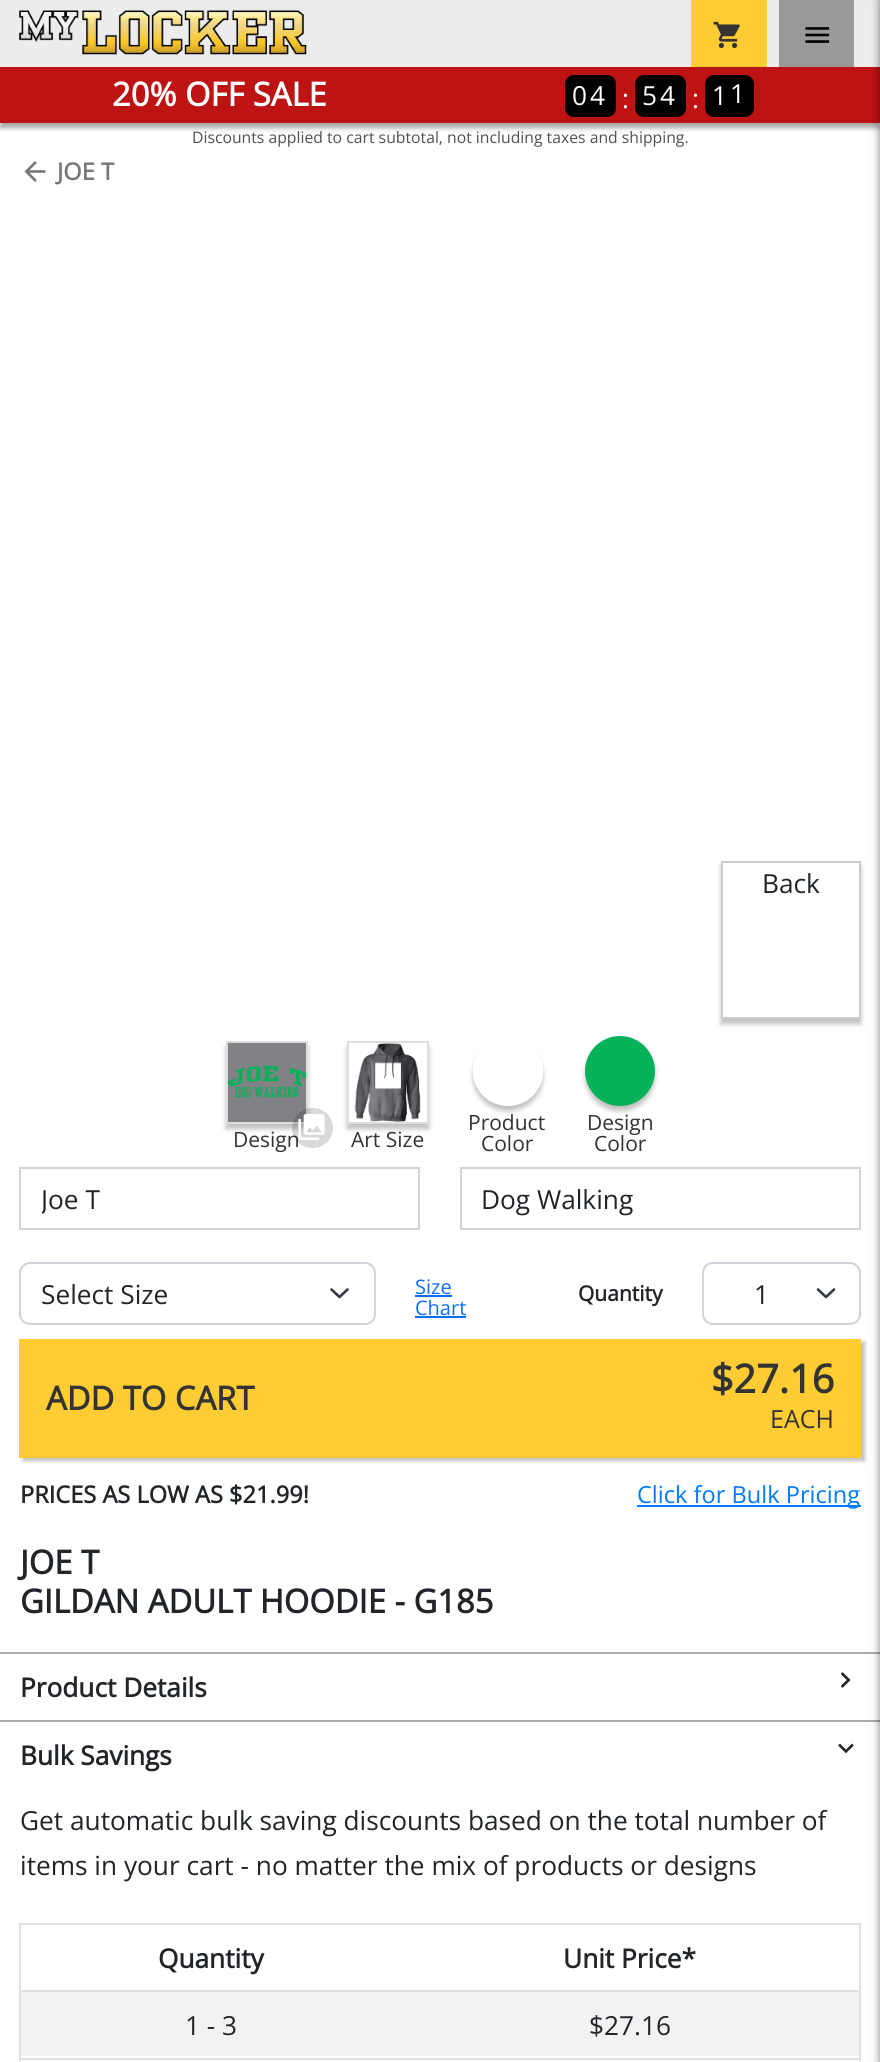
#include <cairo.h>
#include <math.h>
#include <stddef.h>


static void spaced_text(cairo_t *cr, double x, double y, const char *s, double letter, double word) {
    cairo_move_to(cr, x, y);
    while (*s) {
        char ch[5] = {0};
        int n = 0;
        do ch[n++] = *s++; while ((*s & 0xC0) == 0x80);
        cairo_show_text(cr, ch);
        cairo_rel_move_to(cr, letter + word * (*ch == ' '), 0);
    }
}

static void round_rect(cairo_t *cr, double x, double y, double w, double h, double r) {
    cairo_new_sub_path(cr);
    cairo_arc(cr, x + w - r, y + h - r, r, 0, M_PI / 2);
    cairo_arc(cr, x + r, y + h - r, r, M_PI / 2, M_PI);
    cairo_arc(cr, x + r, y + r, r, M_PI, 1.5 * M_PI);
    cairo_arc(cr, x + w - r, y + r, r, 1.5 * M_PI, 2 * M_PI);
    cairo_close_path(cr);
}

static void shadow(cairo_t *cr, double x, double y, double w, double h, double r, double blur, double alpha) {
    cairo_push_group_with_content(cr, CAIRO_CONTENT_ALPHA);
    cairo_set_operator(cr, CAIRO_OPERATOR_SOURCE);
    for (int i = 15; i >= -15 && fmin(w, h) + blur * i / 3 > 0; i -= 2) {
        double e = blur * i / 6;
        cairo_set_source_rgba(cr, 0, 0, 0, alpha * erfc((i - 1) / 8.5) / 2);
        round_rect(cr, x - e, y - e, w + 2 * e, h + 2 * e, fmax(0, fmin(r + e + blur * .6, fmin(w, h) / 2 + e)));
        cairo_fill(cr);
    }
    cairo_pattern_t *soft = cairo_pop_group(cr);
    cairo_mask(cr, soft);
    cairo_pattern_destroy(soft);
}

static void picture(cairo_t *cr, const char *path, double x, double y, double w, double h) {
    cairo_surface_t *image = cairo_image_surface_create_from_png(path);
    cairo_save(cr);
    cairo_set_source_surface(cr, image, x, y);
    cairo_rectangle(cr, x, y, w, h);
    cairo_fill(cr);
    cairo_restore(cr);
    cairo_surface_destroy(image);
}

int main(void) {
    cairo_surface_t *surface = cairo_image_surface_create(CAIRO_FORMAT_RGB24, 880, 2062);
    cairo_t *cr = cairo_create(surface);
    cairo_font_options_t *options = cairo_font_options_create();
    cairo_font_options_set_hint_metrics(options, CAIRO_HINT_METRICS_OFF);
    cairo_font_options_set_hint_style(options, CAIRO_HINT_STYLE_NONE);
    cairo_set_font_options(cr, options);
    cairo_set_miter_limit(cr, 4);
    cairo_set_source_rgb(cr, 1, 1, 1);
    cairo_paint(cr);
    cairo_set_source_rgb(cr, 0.925, 0.925, 0.925);
    cairo_rectangle(cr, 0, 0, 880, 67);
    cairo_fill(cr);
    picture(cr, "img1.png", 19, 10, 288, 45);
    cairo_set_source_rgb(cr, 0, 0, 0);
    shadow(cr, 0, 72, 880, 56, 0, 2.5, 0.35);
    cairo_set_source_rgb(cr, 1, 0.8, 0.2);
    cairo_rectangle(cr, 691, 0, 76, 67);
    cairo_fill(cr);
    picture(cr, "img2.png", 713, 21, 27, 28);
    cairo_set_source_rgb(cr, 0.6, 0.6, 0.6);
    cairo_rectangle(cr, 779, 0, 75, 67);
    cairo_fill(cr);
    picture(cr, "img3.png", 805, 27, 25, 16);
    cairo_set_source_rgb(cr, 0.741, 0.075, 0.078);
    cairo_rectangle(cr, 0, 67, 880, 56);
    cairo_fill(cr);
    cairo_select_font_face(cr, "Open Sans", CAIRO_FONT_SLANT_NORMAL, CAIRO_FONT_WEIGHT_BOLD);
    cairo_set_font_size(cr, 32.75);
    cairo_set_source_rgb(cr, 1, 1, 1);
    cairo_move_to(cr, 112, 106);
    cairo_show_text(cr, "20% OFF SALE");
    cairo_set_source_rgb(cr, 0, 0, 0);
    round_rect(cr, 565, 75, 51, 42, 9);
    cairo_fill(cr);
    cairo_select_font_face(cr, "Open Sans", CAIRO_FONT_SLANT_NORMAL, CAIRO_FONT_WEIGHT_NORMAL);
    cairo_set_font_size(cr, 26.25);
    cairo_set_source_rgb(cr, 1, 1, 1);
    spaced_text(cr, 572, 105, "0", 9, 0);
    spaced_text(cr, 590, 105, "4", 9, 0);
    cairo_move_to(cr, 622, 108);
    cairo_show_text(cr, ":");
    cairo_set_source_rgb(cr, 0, 0, 0);
    round_rect(cr, 635, 75, 51, 42, 9);
    cairo_fill(cr);
    cairo_set_source_rgb(cr, 1, 1, 1);
    spaced_text(cr, 642, 105, "5", 9, 0);
    spaced_text(cr, 660, 105, "4", 9, 0);
    cairo_move_to(cr, 692, 108);
    cairo_show_text(cr, ":");
    cairo_set_source_rgb(cr, 0, 0, 0);
    round_rect(cr, 705, 75, 49, 42, 9);
    cairo_fill(cr);
    cairo_set_source_rgb(cr, 1, 1, 1);
    spaced_text(cr, 712, 105, "1", 9, 0);
    spaced_text(cr, 730, 103, "1", 9, 0);
    cairo_set_font_size(cr, 15.75);
    cairo_set_source_rgb(cr, 0.302, 0.318, 0.329);
    cairo_move_to(cr, 192, 143);
    cairo_show_text(cr, "Discounts applied to cart subtotal, not including taxes and shipping.");
    cairo_set_source_rgb(cr, 0.667, 0.667, 0.667);
    cairo_rectangle(cr, 0, 1652, 880, 2);
    cairo_fill(cr);
    cairo_rectangle(cr, 0, 1720, 880, 2);
    cairo_fill(cr);
    cairo_set_source_rgb(cr, 0, 0, 0);
    shadow(cr, 880, 0, 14, 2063, 0, 4.5, 0.5);
    picture(cr, "img4.png", 24, 161, 22, 21);
    cairo_select_font_face(cr, "Open Sans", CAIRO_FONT_SLANT_NORMAL, CAIRO_FONT_WEIGHT_BOLD);
    cairo_set_font_size(cr, 23.6);
    cairo_set_source_rgb(cr, 0.467, 0.467, 0.467);
    cairo_move_to(cr, 57, 180);
    cairo_show_text(cr, "JOE T");
    cairo_save(cr);
    cairo_set_fill_rule(cr, CAIRO_FILL_RULE_EVEN_ODD);
    cairo_new_path(cr);
    cairo_move_to(cr, 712, 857);
    cairo_line_to(cr, 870, 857);
    cairo_line_to(cr, 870, 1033);
    cairo_line_to(cr, 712, 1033);
    cairo_close_path(cr);
    cairo_move_to(cr, 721, 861);
    cairo_line_to(cr, 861, 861);
    cairo_line_to(cr, 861, 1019);
    cairo_line_to(cr, 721, 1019);
    cairo_close_path(cr);
    cairo_clip(cr);
    cairo_set_source_rgb(cr, 0, 0, 0);
    shadow(cr, 721, 866, 140, 158, 0, 2.5, 0.25);
    cairo_restore(cr);
    cairo_rectangle(cr, 722, 862, 138, 156);
    cairo_set_source_rgb(cr, 0.8, 0.8, 0.8);
    cairo_stroke(cr);
    cairo_select_font_face(cr, "Open Sans", CAIRO_FONT_SLANT_NORMAL, CAIRO_FONT_WEIGHT_NORMAL);
    cairo_set_font_size(cr, 26.25);
    cairo_set_source_rgb(cr, 0.129, 0.145, 0.161);
    cairo_move_to(cr, 762, 893);
    cairo_show_text(cr, "Back");
    cairo_set_source_rgb(cr, 0, 0, 0);
    shadow(cr, 226, 1047, 82, 82, 0, 2.5, 0.25);
    cairo_rectangle(cr, 227, 1042, 80, 81);
    cairo_set_source_rgb(cr, 0.867, 0.867, 0.867);
    cairo_stroke(cr);
    cairo_set_source_rgb(cr, 0.502, 0.51, 0.522);
    cairo_rectangle(cr, 228, 1043, 78, 79);
    cairo_fill(cr);
    picture(cr, "img5.png", 227, 1065, 80, 33);
    cairo_set_font_size(cr, 21);
    cairo_set_source_rgb(cr, 0.2, 0.2, 0.2);
    cairo_move_to(cr, 233, 1147);
    cairo_show_text(cr, "Design");
    cairo_set_source_rgba(cr, 0, 0, 0, 0.15);
    round_rect(cr, 292, 1108, 41, 40, 20);
    cairo_fill(cr);
    picture(cr, "img6.png", 298, 1113, 27, 28);
    cairo_save(cr);
    cairo_set_fill_rule(cr, CAIRO_FILL_RULE_EVEN_ODD);
    cairo_new_path(cr);
    cairo_move_to(cr, 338, 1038);
    cairo_line_to(cr, 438, 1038);
    cairo_line_to(cr, 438, 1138);
    cairo_line_to(cr, 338, 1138);
    cairo_close_path(cr);
    cairo_move_to(cr, 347, 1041);
    cairo_line_to(cr, 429, 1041);
    cairo_line_to(cr, 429, 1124);
    cairo_line_to(cr, 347, 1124);
    cairo_close_path(cr);
    cairo_clip(cr);
    cairo_set_source_rgb(cr, 0, 0, 0);
    shadow(cr, 347, 1047, 82, 82, 0, 2.5, 0.25);
    cairo_restore(cr);
    cairo_rectangle(cr, 348, 1042, 80, 81);
    cairo_set_source_rgb(cr, 0.867, 0.867, 0.867);
    cairo_stroke(cr);
    picture(cr, "img7.png", 354, 1043, 67, 79);
    cairo_set_source_rgb(cr, 0.2, 0.2, 0.2);
    cairo_move_to(cr, 351, 1147);
    cairo_show_text(cr, "Art Size");
    cairo_save(cr);
    cairo_set_fill_rule(cr, CAIRO_FILL_RULE_EVEN_ODD);
    cairo_new_path(cr);
    cairo_move_to(cr, 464, 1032);
    cairo_line_to(cr, 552, 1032);
    cairo_line_to(cr, 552, 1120);
    cairo_line_to(cr, 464, 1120);
    cairo_close_path(cr);
    cairo_move_to(cr, 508, 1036);
    cairo_curve_to(cr, 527.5, 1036, 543, 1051.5, 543, 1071);
    cairo_curve_to(cr, 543, 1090.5, 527.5, 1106, 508, 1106);
    cairo_curve_to(cr, 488.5, 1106, 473, 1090.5, 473, 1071);
    cairo_curve_to(cr, 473, 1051.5, 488.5, 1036, 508, 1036);
    cairo_close_path(cr);
    cairo_clip(cr);
    cairo_set_source_rgb(cr, 0, 0, 0);
    shadow(cr, 473, 1041, 70, 70, 35, 2.5, 0.25);
    cairo_restore(cr);
    cairo_move_to(cr, 468, 1130);
    cairo_show_text(cr, "Product");
    cairo_move_to(cr, 481, 1151);
    cairo_show_text(cr, "Color");
    cairo_set_source_rgb(cr, 0, 0, 0);
    shadow(cr, 585, 1041, 70, 70, 35, 2.5, 0.25);
    cairo_set_source_rgb(cr, 0.02, 0.698, 0.353);
    cairo_arc(cr, 620, 1071, 35, 0, 2 * M_PI);
    cairo_fill(cr);
    cairo_set_source_rgb(cr, 0.2, 0.2, 0.2);
    cairo_move_to(cr, 587, 1130);
    cairo_show_text(cr, "Design");
    cairo_move_to(cr, 594, 1151);
    cairo_show_text(cr, "Color");
    cairo_rectangle(cr, 20, 1168, 399, 61);
    cairo_set_source_rgb(cr, 0.808, 0.831, 0.855);
    cairo_stroke(cr);
    cairo_save(cr);
    cairo_rectangle(cr, 42, 1180, 357, 38);
    cairo_clip(cr);
    cairo_set_font_size(cr, 26.25);
    cairo_set_source_rgb(cr, 0.129, 0.145, 0.161);
    cairo_move_to(cr, 41, 1209);
    cairo_show_text(cr, "Joe T");
    cairo_restore(cr);
    cairo_rectangle(cr, 461, 1168, 399, 61);
    cairo_stroke(cr);
    cairo_set_font_size(cr, 26.25);
    cairo_set_source_rgb(cr, 0.129, 0.145, 0.161);
    cairo_move_to(cr, 481, 1209);
    cairo_show_text(cr, "Dog Walking");
    cairo_new_path(cr);
    cairo_move_to(cr, 331.5, 1289.5);
    cairo_line_to(cr, 339.5, 1297);
    cairo_line_to(cr, 347.5, 1289.5);
    cairo_set_source_rgb(cr, 0.204, 0.227, 0.251);
    cairo_set_line_width(cr, 2.6);
    cairo_set_line_cap(cr, CAIRO_LINE_CAP_ROUND);
    cairo_set_line_join(cr, CAIRO_LINE_JOIN_ROUND);
    cairo_stroke(cr);
    round_rect(cr, 20, 1263, 355, 61, 10);
    cairo_set_source_rgb(cr, 0.808, 0.831, 0.855);
    cairo_set_line_width(cr, 2);
    cairo_set_line_cap(cr, CAIRO_LINE_CAP_BUTT);
    cairo_set_line_join(cr, CAIRO_LINE_JOIN_MITER);
    cairo_stroke(cr);
    cairo_set_source_rgb(cr, 0.129, 0.145, 0.161);
    cairo_move_to(cr, 41, 1304);
    cairo_show_text(cr, "Select Size");
    cairo_set_font_size(cr, 20);
    cairo_set_source_rgb(cr, 0.051, 0.431, 0.992);
    cairo_move_to(cr, 415, 1294);
    cairo_show_text(cr, "Size");
    cairo_rectangle(cr, 415, 1295, 37, 2);
    cairo_fill(cr);
    cairo_move_to(cr, 415, 1315);
    cairo_show_text(cr, "Chart");
    cairo_rectangle(cr, 415, 1316, 51, 2);
    cairo_fill(cr);
    cairo_select_font_face(cr, "Open Sans", CAIRO_FONT_SLANT_NORMAL, CAIRO_FONT_WEIGHT_BOLD);
    cairo_set_font_size(cr, 21);
    cairo_set_source_rgb(cr, 0.129, 0.145, 0.161);
    cairo_move_to(cr, 578, 1301);
    cairo_show_text(cr, "Quantity");
    cairo_new_path(cr);
    cairo_move_to(cr, 818, 1289.5);
    cairo_line_to(cr, 826, 1297);
    cairo_line_to(cr, 834, 1289.5);
    cairo_set_source_rgb(cr, 0.204, 0.227, 0.251);
    cairo_set_line_width(cr, 2.6);
    cairo_set_line_cap(cr, CAIRO_LINE_CAP_ROUND);
    cairo_set_line_join(cr, CAIRO_LINE_JOIN_ROUND);
    cairo_stroke(cr);
    round_rect(cr, 703, 1263, 157, 61, 10);
    cairo_set_source_rgb(cr, 0.808, 0.831, 0.855);
    cairo_set_line_width(cr, 2);
    cairo_set_line_cap(cr, CAIRO_LINE_CAP_BUTT);
    cairo_set_line_join(cr, CAIRO_LINE_JOIN_MITER);
    cairo_stroke(cr);
    cairo_select_font_face(cr, "Open Sans", CAIRO_FONT_SLANT_NORMAL, CAIRO_FONT_WEIGHT_NORMAL);
    cairo_set_font_size(cr, 26.25);
    cairo_set_source_rgb(cr, 0.129, 0.145, 0.161);
    cairo_move_to(cr, 754, 1304);
    cairo_show_text(cr, "1");
    cairo_set_source_rgb(cr, 0, 0, 0);
    shadow(cr, 23, 1342, 842, 119, 0, 2, 0.25);
    cairo_set_source_rgb(cr, 1, 0.8, 0.2);
    cairo_rectangle(cr, 19, 1339, 842, 119);
    cairo_fill(cr);
    cairo_select_font_face(cr, "Open Sans", CAIRO_FONT_SLANT_NORMAL, CAIRO_FONT_WEIGHT_BOLD);
    cairo_set_font_size(cr, 32.75);
    cairo_set_source_rgb(cr, 0.2, 0.2, 0.2);
    cairo_move_to(cr, 46, 1410);
    cairo_show_text(cr, "ADD TO CART");
    cairo_set_font_size(cr, 39.5);
    cairo_move_to(cr, 711, 1393);
    cairo_show_text(cr, "$27.16");
    cairo_select_font_face(cr, "Open Sans", CAIRO_FONT_SLANT_NORMAL, CAIRO_FONT_WEIGHT_NORMAL);
    cairo_set_font_size(cr, 25);
    cairo_move_to(cr, 770, 1428);
    cairo_show_text(cr, "EACH");
    cairo_select_font_face(cr, "Open Sans", CAIRO_FONT_SLANT_NORMAL, CAIRO_FONT_WEIGHT_BOLD);
    cairo_set_font_size(cr, 23.6);
    cairo_set_source_rgb(cr, 0.129, 0.145, 0.161);
    cairo_move_to(cr, 20, 1503);
    cairo_show_text(cr, "PRICES AS LOW AS $21.99!");
    cairo_set_source_rgb(cr, 0, 0.482, 1);
    cairo_rectangle(cr, 637, 1505, 224, 2);
    cairo_fill(cr);
    cairo_select_font_face(cr, "Open Sans", CAIRO_FONT_SLANT_NORMAL, CAIRO_FONT_WEIGHT_NORMAL);
    cairo_move_to(cr, 637, 1503);
    cairo_show_text(cr, "Click for Bulk Pricing");
    cairo_select_font_face(cr, "Open Sans", CAIRO_FONT_SLANT_NORMAL, CAIRO_FONT_WEIGHT_BOLD);
    cairo_set_font_size(cr, 32.75);
    cairo_set_source_rgb(cr, 0.129, 0.145, 0.161);
    cairo_move_to(cr, 20, 1574);
    cairo_show_text(cr, "JOE T");
    cairo_move_to(cr, 20, 1613);
    cairo_show_text(cr, "GILDAN ADULT HOODIE - G185");
    cairo_set_font_size(cr, 26.25);
    cairo_move_to(cr, 20, 1697);
    cairo_show_text(cr, "Product Details");
    picture(cr, "img8.png", 840, 1672, 11, 16);
    cairo_move_to(cr, 20, 1765);
    cairo_show_text(cr, "Bulk Savings");
    picture(cr, "img9.png", 838, 1743, 16, 11);
    cairo_select_font_face(cr, "Open Sans", CAIRO_FONT_SLANT_NORMAL, CAIRO_FONT_WEIGHT_NORMAL);
    cairo_move_to(cr, 20, 1830);
    cairo_show_text(cr, "Get automatic bulk saving discounts based on the total number of");
    cairo_move_to(cr, 20, 1875);
    cairo_show_text(cr, "items in your cart - no matter the mix of products or designs");
    cairo_set_source_rgb(cr, 0.871, 0.886, 0.902);
    cairo_rectangle(cr, 19, 1923, 842, 2);
    cairo_fill(cr);
    cairo_rectangle(cr, 859, 1923, 2, 139);
    cairo_fill(cr);
    cairo_rectangle(cr, 19, 1923, 2, 139);
    cairo_fill(cr);
    cairo_select_font_face(cr, "Open Sans", CAIRO_FONT_SLANT_NORMAL, CAIRO_FONT_WEIGHT_BOLD);
    cairo_set_source_rgb(cr, 0.129, 0.145, 0.161);
    cairo_move_to(cr, 158, 1968);
    cairo_show_text(cr, "Quantity");
    cairo_set_source_rgb(cr, 0.871, 0.886, 0.902);
    cairo_rectangle(cr, 19, 1990, 842, 2);
    cairo_fill(cr);
    cairo_set_source_rgb(cr, 0.129, 0.145, 0.161);
    cairo_move_to(cr, 563, 1968);
    cairo_show_text(cr, "Unit Price*");
    cairo_set_source_rgb(cr, 0.949, 0.949, 0.949);
    cairo_rectangle(cr, 21, 1992, 838, 64);
    cairo_fill(cr);
    cairo_select_font_face(cr, "Open Sans", CAIRO_FONT_SLANT_NORMAL, CAIRO_FONT_WEIGHT_NORMAL);
    cairo_set_source_rgb(cr, 0.129, 0.145, 0.161);
    cairo_move_to(cr, 185, 2035);
    cairo_show_text(cr, "1 - 3");
    cairo_set_source_rgb(cr, 0.871, 0.886, 0.902);
    cairo_rectangle(cr, 19, 2058, 842, 2);
    cairo_fill(cr);
    cairo_set_source_rgb(cr, 0.129, 0.145, 0.161);
    cairo_move_to(cr, 589, 2035);
    cairo_show_text(cr, "$27.16");
    cairo_surface_write_to_png(surface, "page.png");
    cairo_font_options_destroy(options);
    cairo_destroy(cr);
    cairo_surface_destroy(surface);
    return 0;
}
